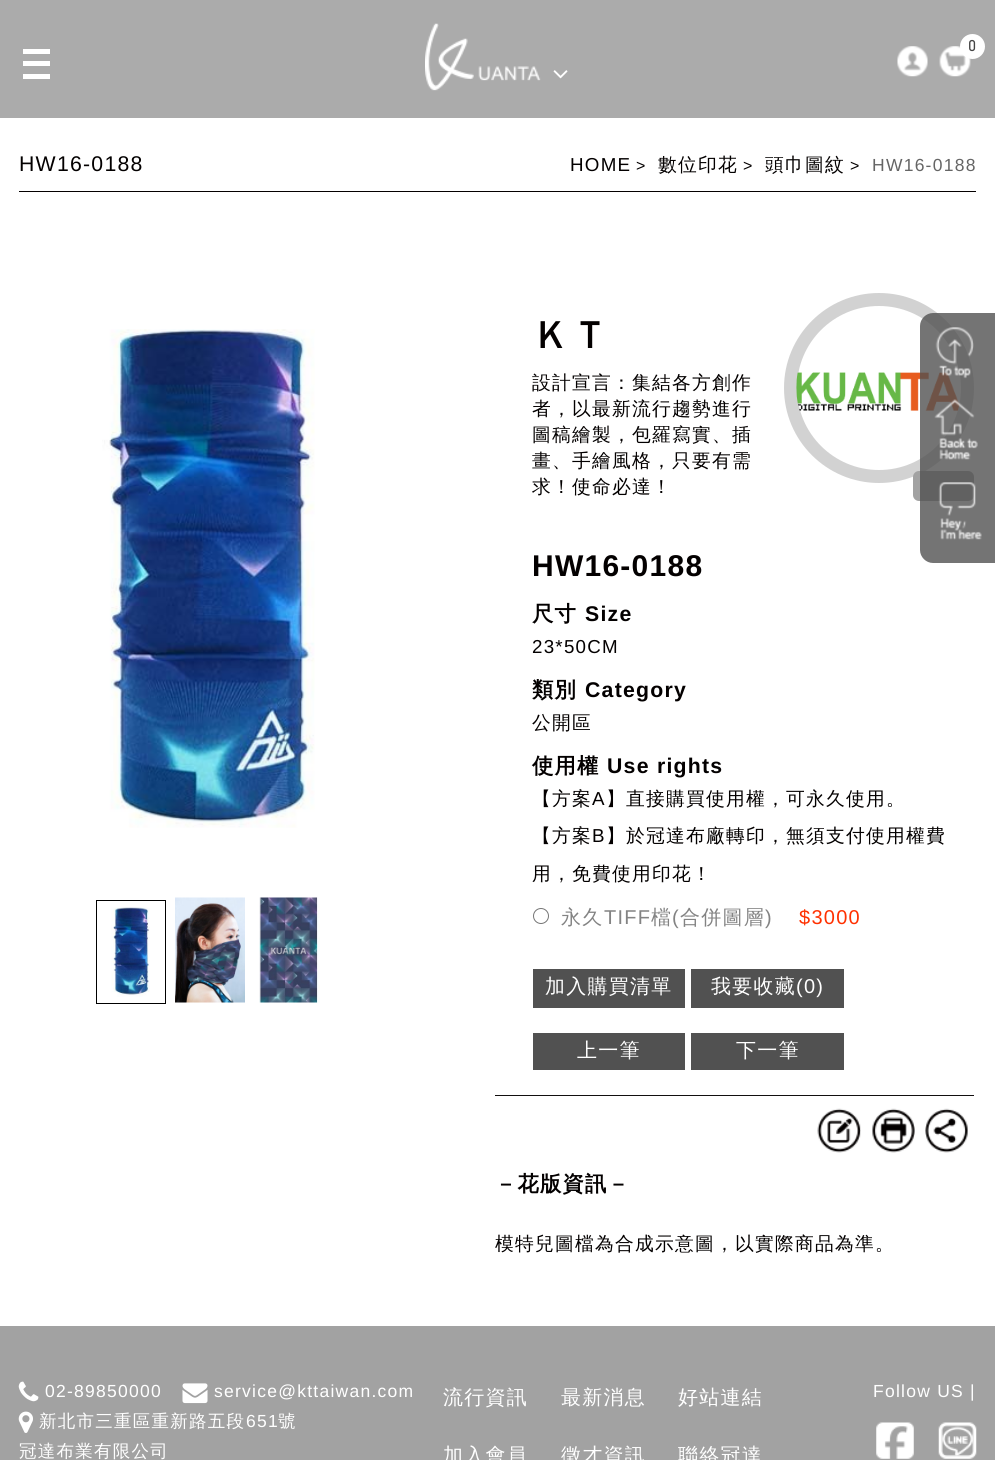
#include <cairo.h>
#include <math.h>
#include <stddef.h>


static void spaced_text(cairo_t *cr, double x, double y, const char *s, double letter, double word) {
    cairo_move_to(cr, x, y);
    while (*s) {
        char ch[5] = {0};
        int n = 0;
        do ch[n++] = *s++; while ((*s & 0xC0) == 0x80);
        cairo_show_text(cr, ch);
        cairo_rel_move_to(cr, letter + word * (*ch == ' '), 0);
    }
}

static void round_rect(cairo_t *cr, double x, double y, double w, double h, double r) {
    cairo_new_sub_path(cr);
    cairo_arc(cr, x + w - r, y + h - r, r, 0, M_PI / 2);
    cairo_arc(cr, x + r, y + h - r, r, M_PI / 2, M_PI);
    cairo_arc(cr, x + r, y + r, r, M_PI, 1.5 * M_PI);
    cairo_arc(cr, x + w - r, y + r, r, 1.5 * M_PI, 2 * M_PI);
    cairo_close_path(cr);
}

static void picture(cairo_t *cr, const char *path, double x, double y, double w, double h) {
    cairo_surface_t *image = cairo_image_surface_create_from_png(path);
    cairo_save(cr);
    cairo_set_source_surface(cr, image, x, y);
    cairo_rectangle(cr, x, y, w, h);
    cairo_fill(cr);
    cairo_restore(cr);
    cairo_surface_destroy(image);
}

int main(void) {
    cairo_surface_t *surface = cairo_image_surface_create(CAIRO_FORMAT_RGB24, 995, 1460);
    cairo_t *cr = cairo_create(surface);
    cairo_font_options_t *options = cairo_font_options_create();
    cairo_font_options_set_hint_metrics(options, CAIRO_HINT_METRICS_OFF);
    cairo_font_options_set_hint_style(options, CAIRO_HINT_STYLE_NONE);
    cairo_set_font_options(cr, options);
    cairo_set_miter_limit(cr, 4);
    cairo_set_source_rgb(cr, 1, 1, 1);
    cairo_paint(cr);
    cairo_set_source_rgb(cr, 0.671, 0.671, 0.671);
    cairo_rectangle(cr, 0, 0, 995, 118);
    cairo_fill(cr);
    picture(cr, "img1.png", 425, 23, 116, 68);
    picture(cr, "img2.png", 553, 70, 15, 9);
    picture(cr, "img3.png", 897, 46, 31, 31);
    picture(cr, "img4.png", 939, 46, 32, 31);
    cairo_set_source_rgb(cr, 1, 1, 1);
    cairo_arc(cr, 972.5, 46.5, 12.5, 0, 2 * M_PI);
    cairo_fill(cr);
    cairo_select_font_face(cr, "Abel", CAIRO_FONT_SLANT_NORMAL, CAIRO_FONT_WEIGHT_BOLD);
    cairo_set_font_size(cr, 15);
    cairo_set_source_rgb(cr, 0.267, 0.267, 0.267);
    spaced_text(cr, 968, 51, "0", 1.25, 0);
    cairo_set_source_rgb(cr, 1, 1, 1);
    cairo_rectangle(cr, 23, 49, 27, 5);
    cairo_fill(cr);
    cairo_rectangle(cr, 23, 61, 27, 5);
    cairo_fill(cr);
    cairo_rectangle(cr, 23, 74, 27, 5);
    cairo_fill(cr);
    cairo_set_source_rgb(cr, 0.016, 0, 0);
    cairo_rectangle(cr, 19, 191, 957, 1);
    cairo_fill(cr);
    cairo_select_font_face(cr, "Liberation Sans", CAIRO_FONT_SLANT_NORMAL, CAIRO_FONT_WEIGHT_NORMAL);
    cairo_set_font_size(cr, 21.25);
    cairo_set_source_rgb(cr, 0.012, 0, 0);
    spaced_text(cr, 19, 171, "HW16-0188", 1.25, 0);
    cairo_set_font_size(cr, 18.75);
    spaced_text(cr, 570, 171, "HOME", 1.25, 0);
    cairo_set_font_size(cr, 16);
    spaced_text(cr, 636, 171, ">", 1.25, 0);
    cairo_select_font_face(cr, "WenQuanYi Zen Hei Medium", CAIRO_FONT_SLANT_NORMAL, CAIRO_FONT_WEIGHT_NORMAL);
    cairo_set_font_size(cr, 18.75);
    spaced_text(cr, 658, 171, "數位印花", 1.25, 0);
    cairo_select_font_face(cr, "Liberation Sans", CAIRO_FONT_SLANT_NORMAL, CAIRO_FONT_WEIGHT_NORMAL);
    cairo_set_font_size(cr, 16);
    spaced_text(cr, 743, 171, ">", 1.25, 0);
    cairo_select_font_face(cr, "WenQuanYi Zen Hei Medium", CAIRO_FONT_SLANT_NORMAL, CAIRO_FONT_WEIGHT_NORMAL);
    cairo_set_font_size(cr, 18.75);
    spaced_text(cr, 765, 171, "頭巾圖紋", 1.25, 0);
    cairo_select_font_face(cr, "Liberation Sans", CAIRO_FONT_SLANT_NORMAL, CAIRO_FONT_WEIGHT_NORMAL);
    cairo_set_font_size(cr, 16);
    spaced_text(cr, 850, 171, ">", 1.25, 0);
    cairo_set_font_size(cr, 17.5);
    cairo_set_source_rgb(cr, 0.396, 0.396, 0.396);
    spaced_text(cr, 872, 171, "HW16-0188", 1.25, 0);
    picture(cr, "img5.png", 102, 329, 213, 499);
    cairo_rectangle(cr, 96.5, 900.5, 69, 103);
    cairo_set_source_rgb(cr, 0, 0, 0);
    cairo_set_line_width(cr, 1);
    cairo_stroke(cr);
    picture(cr, "img6.png", 111, 907, 39, 90);
    picture(cr, "img7.png", 175, 897, 70, 106);
    picture(cr, "img8.png", 259, 897, 61, 106);
    cairo_select_font_face(cr, "WenQuanYi Zen Hei", CAIRO_FONT_SLANT_NORMAL, CAIRO_FONT_WEIGHT_BOLD);
    cairo_set_font_size(cr, 37.5);
    cairo_set_source_rgb(cr, 0.012, 0, 0);
    spaced_text(cr, 532, 348, "ＫＴ", 1.25, 0);
    cairo_select_font_face(cr, "WenQuanYi Zen Hei Medium", CAIRO_FONT_SLANT_NORMAL, CAIRO_FONT_WEIGHT_NORMAL);
    cairo_set_font_size(cr, 18.75);
    spaced_text(cr, 532, 389, "設計宣言：集結各方創作", 1.25, 0);
    spaced_text(cr, 532, 415, "者，以最新流行趨勢進行", 1.25, 0);
    spaced_text(cr, 532, 441, "圖稿繪製，包羅寫實、插", 1.25, 0);
    spaced_text(cr, 532, 467, "畫、手繪風格，只要有需", 1.25, 0);
    spaced_text(cr, 532, 493, "求！使命必達！", 1.25, 0);
    cairo_new_path(cr);
    cairo_arc(cr, 879, 388, 88.5, 0, 2 * M_PI);
    cairo_set_source_rgb(cr, 0.824, 0.824, 0.824);
    cairo_set_line_width(cr, 13);
    cairo_stroke(cr);
    picture(cr, "img9.png", 796, 372, 164, 39);
    cairo_set_source_rgb(cr, 0.635, 0.635, 0.635);
    round_rect(cr, 913, 471, 61, 30, 6);
    cairo_fill(cr);
    cairo_select_font_face(cr, "Liberation Sans", CAIRO_FONT_SLANT_NORMAL, CAIRO_FONT_WEIGHT_BOLD);
    cairo_set_font_size(cr, 30);
    cairo_set_source_rgb(cr, 0.012, 0, 0);
    spaced_text(cr, 532, 576, "HW16-0188", 1.25, 0);
    cairo_select_font_face(cr, "WenQuanYi Zen Hei", CAIRO_FONT_SLANT_NORMAL, CAIRO_FONT_WEIGHT_BOLD);
    cairo_set_font_size(cr, 21.25);
    spaced_text(cr, 532, 621, "尺寸", 1.25, 0);
    cairo_select_font_face(cr, "Liberation Sans", CAIRO_FONT_SLANT_NORMAL, CAIRO_FONT_WEIGHT_BOLD);
    spaced_text(cr, 585, 621, "Size", 1.25, 0);
    cairo_select_font_face(cr, "Liberation Sans", CAIRO_FONT_SLANT_NORMAL, CAIRO_FONT_WEIGHT_NORMAL);
    cairo_set_font_size(cr, 18.75);
    spaced_text(cr, 532, 653, "23*50CM", 1.25, 0);
    cairo_select_font_face(cr, "WenQuanYi Zen Hei", CAIRO_FONT_SLANT_NORMAL, CAIRO_FONT_WEIGHT_BOLD);
    cairo_set_font_size(cr, 21.25);
    spaced_text(cr, 532, 697, "類別", 1.25, 0);
    cairo_select_font_face(cr, "Liberation Sans", CAIRO_FONT_SLANT_NORMAL, CAIRO_FONT_WEIGHT_BOLD);
    spaced_text(cr, 585, 697, "Category", 1.25, 0);
    cairo_select_font_face(cr, "WenQuanYi Zen Hei Medium", CAIRO_FONT_SLANT_NORMAL, CAIRO_FONT_WEIGHT_NORMAL);
    cairo_set_font_size(cr, 18.75);
    spaced_text(cr, 532, 729, "公開區", 1.25, 0);
    cairo_select_font_face(cr, "WenQuanYi Zen Hei", CAIRO_FONT_SLANT_NORMAL, CAIRO_FONT_WEIGHT_BOLD);
    cairo_set_font_size(cr, 21.25);
    spaced_text(cr, 532, 773, "使用權", 1.25, 0);
    cairo_select_font_face(cr, "Liberation Sans", CAIRO_FONT_SLANT_NORMAL, CAIRO_FONT_WEIGHT_BOLD);
    spaced_text(cr, 607, 773, "Use rights", 1.25, 0);
    cairo_select_font_face(cr, "WenQuanYi Zen Hei Medium", CAIRO_FONT_SLANT_NORMAL, CAIRO_FONT_WEIGHT_NORMAL);
    cairo_set_font_size(cr, 18.75);
    spaced_text(cr, 532, 805, "【方案", 1.25, 0);
    cairo_select_font_face(cr, "Liberation Sans", CAIRO_FONT_SLANT_NORMAL, CAIRO_FONT_WEIGHT_NORMAL);
    spaced_text(cr, 592, 805, "A", 1.25, 0);
    cairo_select_font_face(cr, "WenQuanYi Zen Hei Medium", CAIRO_FONT_SLANT_NORMAL, CAIRO_FONT_WEIGHT_NORMAL);
    spaced_text(cr, 606, 805, "】直接購買使用權，可永久使用。", 1.25, 0);
    spaced_text(cr, 532, 842, "【方案", 1.25, 0);
    cairo_select_font_face(cr, "Liberation Sans", CAIRO_FONT_SLANT_NORMAL, CAIRO_FONT_WEIGHT_NORMAL);
    spaced_text(cr, 592, 842, "B", 1.25, 0);
    cairo_select_font_face(cr, "WenQuanYi Zen Hei Medium", CAIRO_FONT_SLANT_NORMAL, CAIRO_FONT_WEIGHT_NORMAL);
    spaced_text(cr, 606, 842, "】於冠達布廠轉印，無須支付使用權費", 1.25, 0);
    spaced_text(cr, 532, 880, "用，免費使用印花！", 1.25, 0);
    cairo_new_path(cr);
    cairo_arc(cr, 541, 916, 7.5, 0, 2 * M_PI);
    cairo_set_source_rgb(cr, 0.463, 0.463, 0.463);
    cairo_set_line_width(cr, 1);
    cairo_stroke(cr);
    cairo_set_font_size(cr, 20);
    cairo_set_source_rgb(cr, 0.514, 0.514, 0.514);
    spaced_text(cr, 561, 924, "永久", 1.25, 0);
    cairo_select_font_face(cr, "Liberation Sans", CAIRO_FONT_SLANT_NORMAL, CAIRO_FONT_WEIGHT_NORMAL);
    spaced_text(cr, 604, 924, "TIFF", 1.25, 0);
    cairo_select_font_face(cr, "WenQuanYi Zen Hei Medium", CAIRO_FONT_SLANT_NORMAL, CAIRO_FONT_WEIGHT_NORMAL);
    spaced_text(cr, 651, 924, "檔", 1.25, 0);
    cairo_select_font_face(cr, "Liberation Sans", CAIRO_FONT_SLANT_NORMAL, CAIRO_FONT_WEIGHT_NORMAL);
    spaced_text(cr, 672, 924, "(", 1.25, 0);
    cairo_select_font_face(cr, "WenQuanYi Zen Hei Medium", CAIRO_FONT_SLANT_NORMAL, CAIRO_FONT_WEIGHT_NORMAL);
    spaced_text(cr, 680, 924, "合併圖層", 1.25, 0);
    cairo_select_font_face(cr, "Liberation Sans", CAIRO_FONT_SLANT_NORMAL, CAIRO_FONT_WEIGHT_NORMAL);
    spaced_text(cr, 765, 924, ")", 1.25, 0);
    cairo_set_source_rgb(cr, 1, 0.188, 0);
    spaced_text(cr, 799, 924, "$3000", 1.25, 0);
    cairo_set_source_rgb(cr, 0.318, 0.318, 0.318);
    cairo_rectangle(cr, 533, 969, 152, 39);
    cairo_fill(cr);
    cairo_select_font_face(cr, "WenQuanYi Zen Hei Medium", CAIRO_FONT_SLANT_NORMAL, CAIRO_FONT_WEIGHT_NORMAL);
    cairo_set_source_rgb(cr, 1, 1, 1);
    spaced_text(cr, 545, 993, "加入購買清單", 1.25, 0);
    cairo_set_source_rgb(cr, 0.318, 0.318, 0.318);
    cairo_rectangle(cr, 691, 969, 153, 39);
    cairo_fill(cr);
    cairo_set_source_rgb(cr, 1, 1, 1);
    spaced_text(cr, 711, 993, "我要收藏", 1.25, 0);
    cairo_select_font_face(cr, "Liberation Sans", CAIRO_FONT_SLANT_NORMAL, CAIRO_FONT_WEIGHT_NORMAL);
    spaced_text(cr, 796, 993, "(0)", 1.25, 0);
    cairo_set_source_rgb(cr, 0.318, 0.318, 0.318);
    cairo_rectangle(cr, 533, 1033, 152, 37);
    cairo_fill(cr);
    cairo_select_font_face(cr, "WenQuanYi Zen Hei Medium", CAIRO_FONT_SLANT_NORMAL, CAIRO_FONT_WEIGHT_NORMAL);
    cairo_set_source_rgb(cr, 1, 1, 1);
    spaced_text(cr, 577, 1057, "上一筆", 1.25, 0);
    cairo_set_source_rgb(cr, 0.318, 0.318, 0.318);
    cairo_rectangle(cr, 691, 1033, 153, 37);
    cairo_fill(cr);
    cairo_set_source_rgb(cr, 1, 1, 1);
    spaced_text(cr, 736, 1057, "下一筆", 1.25, 0);
    cairo_set_source_rgb(cr, 0.071, 0.059, 0.059);
    cairo_rectangle(cr, 495, 1095, 479, 1);
    cairo_fill(cr);
    picture(cr, "img10.png", 817, 1108, 44, 45);
    picture(cr, "img11.png", 872, 1108, 43, 45);
    picture(cr, "img12.png", 925, 1108, 43, 45);
    cairo_select_font_face(cr, "WenQuanYi Zen Hei", CAIRO_FONT_SLANT_NORMAL, CAIRO_FONT_WEIGHT_BOLD);
    cairo_set_font_size(cr, 21.25);
    cairo_set_source_rgb(cr, 0.012, 0, 0);
    spaced_text(cr, 495, 1191, "－花版資訊－", 1.25, 0);
    cairo_select_font_face(cr, "WenQuanYi Zen Hei Medium", CAIRO_FONT_SLANT_NORMAL, CAIRO_FONT_WEIGHT_NORMAL);
    cairo_set_font_size(cr, 18.75);
    spaced_text(cr, 495, 1250, "模特兒圖檔為合成示意圖，以實際商品為準。", 1.25, 0);
    cairo_set_source_rgba(cr, 0.318, 0.318, 0.318, 0.8);
    cairo_new_path(cr);
    cairo_move_to(cr, 933, 313);
    cairo_line_to(cr, 995, 313);
    cairo_line_to(cr, 995, 563);
    cairo_line_to(cr, 933, 563);
    cairo_curve_to(cr, 926, 563, 920, 557, 920, 550);
    cairo_line_to(cr, 920, 326);
    cairo_curve_to(cr, 920, 319, 926, 313, 933, 313);
    cairo_close_path(cr);
    cairo_fill(cr);
    picture(cr, "img13.png", 935, 327, 39, 52);
    picture(cr, "img14.png", 934, 399, 44, 61);
    picture(cr, "img15.png", 938, 482, 44, 58);
    cairo_set_source_rgb(cr, 0.635, 0.635, 0.635);
    cairo_rectangle(cr, 0, 1326, 995, 134);
    cairo_fill(cr);
    picture(cr, "img16.png", 18, 1381, 21, 21);
    cairo_select_font_face(cr, "Liberation Sans", CAIRO_FONT_SLANT_NORMAL, CAIRO_FONT_WEIGHT_NORMAL);
    cairo_set_font_size(cr, 17.5);
    cairo_set_source_rgb(cr, 1, 1, 1);
    spaced_text(cr, 45, 1397, "02-89850000", 1.25, 0);
    picture(cr, "img17.png", 182, 1383, 26, 21);
    spaced_text(cr, 214, 1397, "service@kttaiwan.com", 1.25, 0);
    picture(cr, "img18.png", 18, 1411, 15, 22);
    cairo_select_font_face(cr, "WenQuanYi Zen Hei Medium", CAIRO_FONT_SLANT_NORMAL, CAIRO_FONT_WEIGHT_NORMAL);
    spaced_text(cr, 39, 1427, "新北市三重區重新路五段", 1.25, 0);
    cairo_select_font_face(cr, "Liberation Sans", CAIRO_FONT_SLANT_NORMAL, CAIRO_FONT_WEIGHT_NORMAL);
    spaced_text(cr, 246, 1427, "651", 1.25, 0);
    cairo_select_font_face(cr, "WenQuanYi Zen Hei Medium", CAIRO_FONT_SLANT_NORMAL, CAIRO_FONT_WEIGHT_NORMAL);
    spaced_text(cr, 278, 1427, "號", 1.25, 0);
    spaced_text(cr, 19, 1457, "冠達布業有限公司", 1.25, 0);
    cairo_set_font_size(cr, 20);
    spaced_text(cr, 443, 1404, "流行資訊", 1.25, 0);
    spaced_text(cr, 561, 1404, "最新消息", 1.25, 0);
    spaced_text(cr, 678, 1404, "好站連結", 1.25, 0);
    spaced_text(cr, 443, 1462, "加入會員", 1.25, 0);
    spaced_text(cr, 561, 1462, "徵才資訊", 1.25, 0);
    spaced_text(cr, 678, 1462, "聯絡冠達", 1.25, 0);
    cairo_select_font_face(cr, "Liberation Sans", CAIRO_FONT_SLANT_NORMAL, CAIRO_FONT_WEIGHT_NORMAL);
    cairo_set_font_size(cr, 17.5);
    spaced_text(cr, 873, 1397, "Follow US |", 1.25, 0);
    picture(cr, "img19.png", 876, 1422, 38, 37);
    picture(cr, "img20.png", 938, 1422, 39, 37);
    cairo_surface_write_to_png(surface, "page.png");
    cairo_font_options_destroy(options);
    cairo_destroy(cr);
    cairo_surface_destroy(surface);
    return 0;
}
